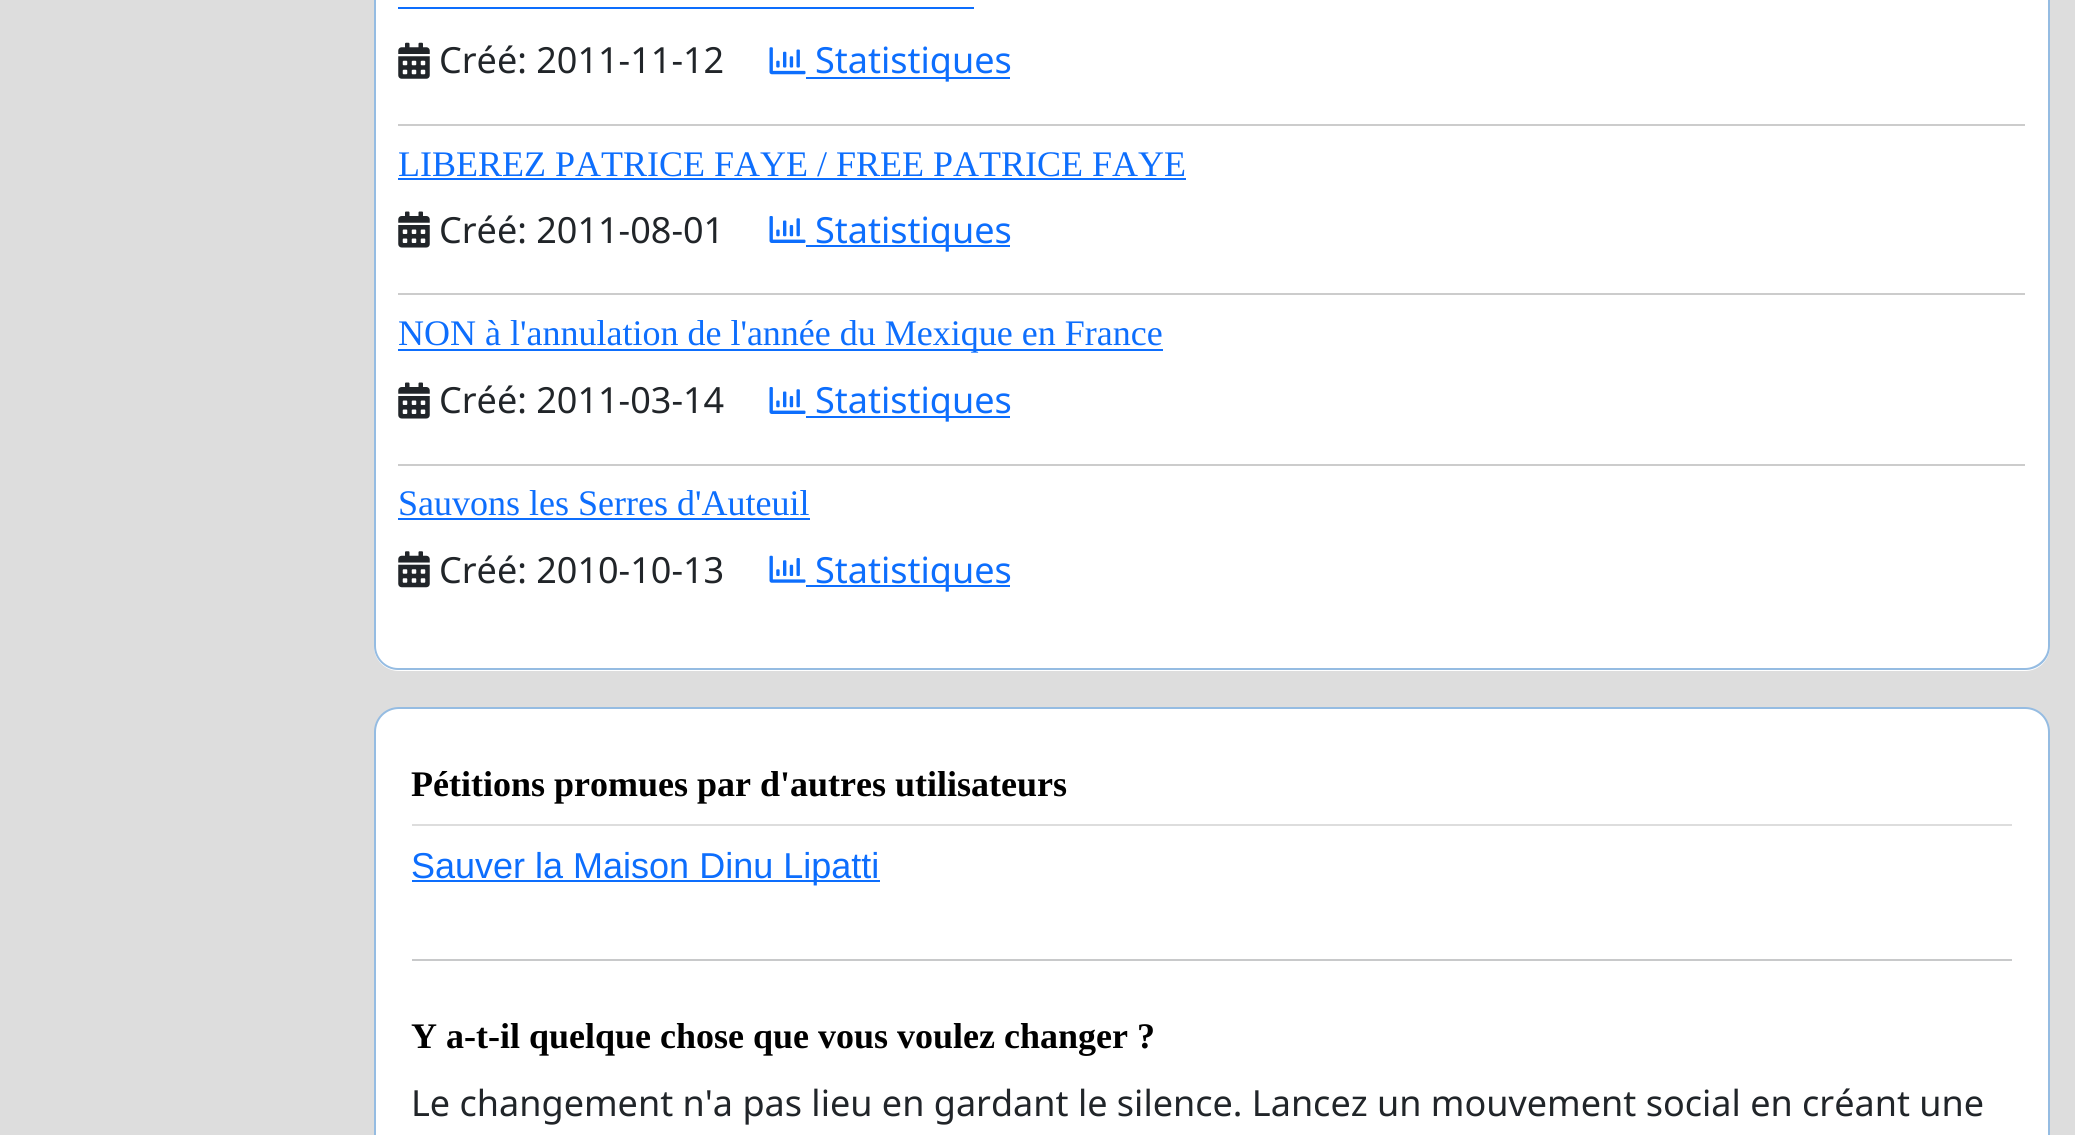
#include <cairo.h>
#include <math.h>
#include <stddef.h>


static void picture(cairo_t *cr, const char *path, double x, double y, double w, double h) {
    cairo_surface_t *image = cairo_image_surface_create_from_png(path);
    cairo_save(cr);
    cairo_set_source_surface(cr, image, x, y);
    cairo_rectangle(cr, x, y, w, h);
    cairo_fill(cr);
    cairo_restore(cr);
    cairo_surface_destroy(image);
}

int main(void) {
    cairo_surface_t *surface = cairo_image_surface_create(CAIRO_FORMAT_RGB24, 2075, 1135);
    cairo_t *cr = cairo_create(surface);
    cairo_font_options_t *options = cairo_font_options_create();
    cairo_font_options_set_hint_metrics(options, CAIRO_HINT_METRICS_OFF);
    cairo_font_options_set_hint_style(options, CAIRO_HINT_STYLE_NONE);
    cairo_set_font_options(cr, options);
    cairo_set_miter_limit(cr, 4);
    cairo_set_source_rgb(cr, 0.867, 0.867, 0.867);
    cairo_paint(cr);
    cairo_set_source_rgb(cr, 1, 1, 1);
    cairo_new_path(cr);
    cairo_move_to(cr, 374, -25);
    cairo_line_to(cr, 2050, -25);
    cairo_line_to(cr, 2050, 646);
    cairo_curve_to(cr, 2050, 660, 2039, 671, 2025, 671);
    cairo_line_to(cr, 399, 671);
    cairo_curve_to(cr, 385, 671, 374, 660, 374, 646);
    cairo_close_path(cr);
    cairo_fill(cr);
    cairo_set_source_rgb(cr, 0.584, 0.737, 0.886);
    cairo_set_fill_rule(cr, CAIRO_FILL_RULE_EVEN_ODD);
    cairo_new_path(cr);
    cairo_move_to(cr, 374, -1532);
    cairo_line_to(cr, 2050, -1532);
    cairo_line_to(cr, 2050, 646);
    cairo_curve_to(cr, 2050, 659, 2039, 670, 2025, 670);
    cairo_line_to(cr, 398, 670);
    cairo_curve_to(cr, 385, 670, 374, 659, 374, 646);
    cairo_close_path(cr);
    cairo_move_to(cr, 376, -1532);
    cairo_line_to(cr, 2048, -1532);
    cairo_line_to(cr, 2048, 646);
    cairo_curve_to(cr, 2048, 658, 2037, 668, 2025, 668);
    cairo_line_to(cr, 398, 668);
    cairo_curve_to(cr, 386, 668, 376, 658, 376, 646);
    cairo_close_path(cr);
    cairo_fill(cr);
    cairo_set_source_rgb(cr, 0.051, 0.431, 0.992);
    cairo_rectangle(cr, 398, 7, 576, 2);
    cairo_fill(cr);
    picture(cr, "img1.png", 398, 42, 32, 37);
    cairo_select_font_face(cr, "Noto Sans", CAIRO_FONT_SLANT_NORMAL, CAIRO_FONT_WEIGHT_NORMAL);
    cairo_set_font_size(cr, 36);
    cairo_set_source_rgb(cr, 0.129, 0.145, 0.161);
    cairo_move_to(cr, 439, 73);
    cairo_show_text(cr, "Créé: 2011-11-12");
    picture(cr, "img2.png", 769, 47, 37, 28);
    cairo_set_source_rgb(cr, 0.051, 0.431, 0.992);
    cairo_rectangle(cr, 806, 77, 204, 2);
    cairo_fill(cr);
    cairo_move_to(cr, 815, 73);
    cairo_show_text(cr, "Statistiques");
    cairo_set_source_rgb(cr, 0.8, 0.8, 0.8);
    cairo_rectangle(cr, 398, 124, 1627, 2);
    cairo_fill(cr);
    cairo_select_font_face(cr, "Liberation Serif", CAIRO_FONT_SLANT_NORMAL, CAIRO_FONT_WEIGHT_NORMAL);
    cairo_set_source_rgb(cr, 0.051, 0.431, 0.992);
    cairo_move_to(cr, 398, 176);
    cairo_show_text(cr, "LIBEREZ PATRICE FAYE / FREE PATRICE FAYE");
    cairo_rectangle(cr, 398, 178, 788, 2);
    cairo_fill(cr);
    picture(cr, "img3.png", 398, 211, 32, 37);
    cairo_select_font_face(cr, "Noto Sans", CAIRO_FONT_SLANT_NORMAL, CAIRO_FONT_WEIGHT_NORMAL);
    cairo_set_source_rgb(cr, 0.129, 0.145, 0.161);
    cairo_move_to(cr, 439, 243);
    cairo_show_text(cr, "Créé: 2011-08-01");
    picture(cr, "img4.png", 769, 216, 37, 27);
    cairo_set_source_rgb(cr, 0.051, 0.431, 0.992);
    cairo_rectangle(cr, 806, 245, 204, 2);
    cairo_fill(cr);
    cairo_move_to(cr, 815, 243);
    cairo_show_text(cr, "Statistiques");
    cairo_set_source_rgb(cr, 0.8, 0.8, 0.8);
    cairo_rectangle(cr, 398, 293, 1627, 2);
    cairo_fill(cr);
    cairo_set_source_rgb(cr, 0.051, 0.431, 0.992);
    cairo_rectangle(cr, 398, 349, 765, 2);
    cairo_fill(cr);
    cairo_select_font_face(cr, "Liberation Serif", CAIRO_FONT_SLANT_NORMAL, CAIRO_FONT_WEIGHT_NORMAL);
    cairo_move_to(cr, 398, 345);
    cairo_show_text(cr, "NON à l'annulation de l'année du Mexique en France");
    picture(cr, "img3.png", 398, 382, 32, 37);
    cairo_select_font_face(cr, "Noto Sans", CAIRO_FONT_SLANT_NORMAL, CAIRO_FONT_WEIGHT_NORMAL);
    cairo_set_source_rgb(cr, 0.129, 0.145, 0.161);
    cairo_move_to(cr, 439, 413);
    cairo_show_text(cr, "Créé: 2011-03-14");
    picture(cr, "img4.png", 769, 387, 37, 27);
    cairo_set_source_rgb(cr, 0.051, 0.431, 0.992);
    cairo_rectangle(cr, 806, 416, 204, 2);
    cairo_fill(cr);
    cairo_move_to(cr, 815, 413);
    cairo_show_text(cr, "Statistiques");
    cairo_set_source_rgb(cr, 0.8, 0.8, 0.8);
    cairo_rectangle(cr, 398, 464, 1627, 2);
    cairo_fill(cr);
    cairo_select_font_face(cr, "Liberation Serif", CAIRO_FONT_SLANT_NORMAL, CAIRO_FONT_WEIGHT_NORMAL);
    cairo_set_source_rgb(cr, 0.051, 0.431, 0.992);
    cairo_move_to(cr, 398, 515);
    cairo_show_text(cr, "Sauvons les Serres d'Auteuil");
    cairo_rectangle(cr, 398, 518, 412, 2);
    cairo_fill(cr);
    picture(cr, "img5.png", 398, 551, 32, 37);
    cairo_select_font_face(cr, "Noto Sans", CAIRO_FONT_SLANT_NORMAL, CAIRO_FONT_WEIGHT_NORMAL);
    cairo_set_source_rgb(cr, 0.129, 0.145, 0.161);
    cairo_move_to(cr, 439, 583);
    cairo_show_text(cr, "Créé: 2010-10-13");
    picture(cr, "img6.png", 769, 555, 37, 28);
    cairo_set_source_rgb(cr, 0.051, 0.431, 0.992);
    cairo_rectangle(cr, 806, 585, 204, 2);
    cairo_fill(cr);
    cairo_move_to(cr, 815, 583);
    cairo_show_text(cr, "Statistiques");
    cairo_set_source_rgb(cr, 1, 1, 1);
    cairo_new_path(cr);
    cairo_move_to(cr, 399, 708);
    cairo_line_to(cr, 2025, 708);
    cairo_curve_to(cr, 2038.5, 708, 2049, 718.5, 2049, 732);
    cairo_line_to(cr, 2049, 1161);
    cairo_line_to(cr, 375, 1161);
    cairo_line_to(cr, 375, 732);
    cairo_curve_to(cr, 375, 718.5, 385.5, 708, 399, 708);
    cairo_close_path(cr);
    cairo_fill_preserve(cr);
    cairo_set_source_rgb(cr, 0.584, 0.737, 0.886);
    cairo_stroke(cr);
    cairo_select_font_face(cr, "Liberation Serif", CAIRO_FONT_SLANT_NORMAL, CAIRO_FONT_WEIGHT_BOLD);
    cairo_set_source_rgb(cr, 0, 0, 0);
    cairo_move_to(cr, 411, 796);
    cairo_show_text(cr, "Pétitions promues par d'autres utilisateurs");
    cairo_set_source_rgb(cr, 0.867, 0.867, 0.867);
    cairo_rectangle(cr, 412, 824, 1600, 2);
    cairo_fill(cr);
    cairo_set_source_rgb(cr, 0.051, 0.431, 0.992);
    cairo_rectangle(cr, 412, 880, 468, 2);
    cairo_fill(cr);
    cairo_select_font_face(cr, "Liberation Sans", CAIRO_FONT_SLANT_NORMAL, CAIRO_FONT_WEIGHT_NORMAL);
    cairo_move_to(cr, 411, 878);
    cairo_show_text(cr, "Sauver la Maison Dinu Lipatti");
    cairo_set_source_rgb(cr, 0.784, 0.788, 0.792);
    cairo_rectangle(cr, 412, 959, 1600, 2);
    cairo_fill(cr);
    cairo_select_font_face(cr, "Liberation Serif", CAIRO_FONT_SLANT_NORMAL, CAIRO_FONT_WEIGHT_BOLD);
    cairo_set_source_rgb(cr, 0, 0, 0);
    cairo_move_to(cr, 411, 1048);
    cairo_show_text(cr, "Y a-t-il quelque chose que vous voulez changer ?");
    cairo_select_font_face(cr, "Noto Sans", CAIRO_FONT_SLANT_NORMAL, CAIRO_FONT_WEIGHT_NORMAL);
    cairo_set_source_rgb(cr, 0.129, 0.145, 0.161);
    cairo_move_to(cr, 411, 1116);
    cairo_show_text(cr, "Le changement n'a pas lieu en gardant le silence. Lancez un mouvement social en créant une");
    cairo_surface_write_to_png(surface, "page.png");
    cairo_font_options_destroy(options);
    cairo_destroy(cr);
    cairo_surface_destroy(surface);
    return 0;
}
